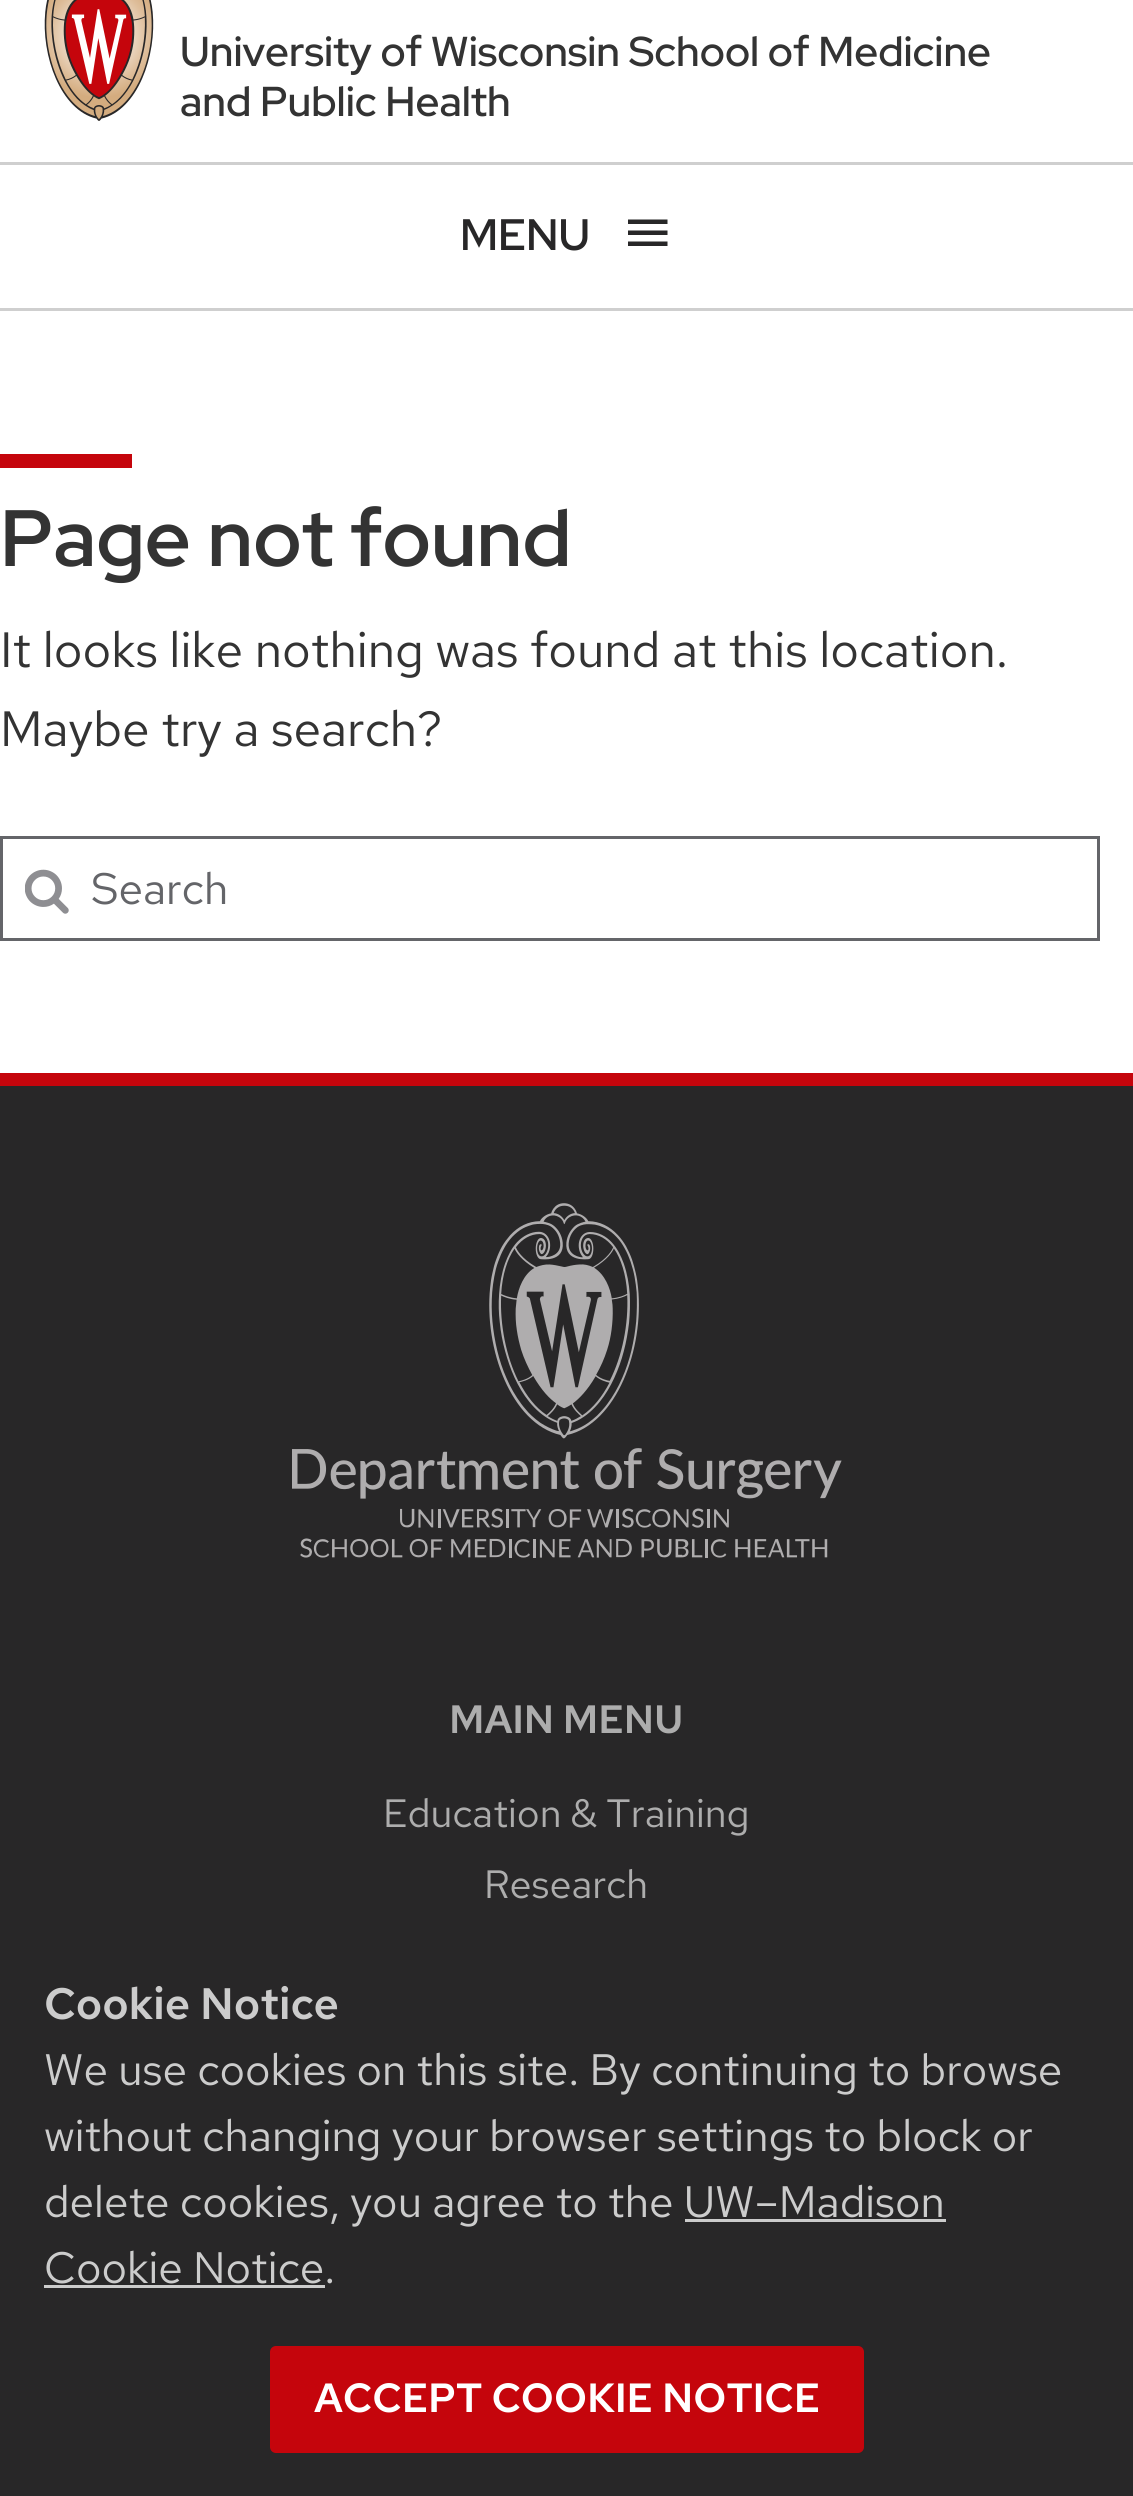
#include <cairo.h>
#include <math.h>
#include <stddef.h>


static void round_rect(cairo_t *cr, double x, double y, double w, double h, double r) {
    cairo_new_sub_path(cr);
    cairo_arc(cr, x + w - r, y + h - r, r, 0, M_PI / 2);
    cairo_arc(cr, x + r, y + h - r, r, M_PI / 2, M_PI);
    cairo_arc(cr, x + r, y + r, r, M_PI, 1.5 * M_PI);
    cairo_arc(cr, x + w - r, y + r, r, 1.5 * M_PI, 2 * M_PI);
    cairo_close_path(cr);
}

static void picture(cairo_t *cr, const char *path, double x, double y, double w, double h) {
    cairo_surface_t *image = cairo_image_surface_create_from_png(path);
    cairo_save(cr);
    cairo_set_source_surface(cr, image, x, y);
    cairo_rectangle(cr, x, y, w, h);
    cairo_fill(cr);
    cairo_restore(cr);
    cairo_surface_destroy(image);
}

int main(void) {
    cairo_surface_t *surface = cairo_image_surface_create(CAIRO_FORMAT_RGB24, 1133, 2496);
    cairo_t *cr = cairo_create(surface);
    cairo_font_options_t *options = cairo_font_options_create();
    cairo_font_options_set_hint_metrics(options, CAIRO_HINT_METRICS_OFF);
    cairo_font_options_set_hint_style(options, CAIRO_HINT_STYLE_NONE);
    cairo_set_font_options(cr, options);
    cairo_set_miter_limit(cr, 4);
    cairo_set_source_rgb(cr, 1, 1, 1);
    cairo_paint(cr);
    picture(cr, "img1.png", 44, 0, 110, 121);
    cairo_select_font_face(cr, "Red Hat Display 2 SemiBold", CAIRO_FONT_SLANT_NORMAL, CAIRO_FONT_WEIGHT_NORMAL);
    cairo_set_font_size(cr, 41.75);
    cairo_set_source_rgb(cr, 0.2, 0.2, 0.2);
    cairo_move_to(cr, 180, 66);
    cairo_show_text(cr, "University of Wisconsin School of Medicine");
    cairo_move_to(cr, 180, 116);
    cairo_show_text(cr, "and Public Health");
    cairo_set_source_rgb(cr, 0.812, 0.812, 0.812);
    cairo_rectangle(cr, 0, 162, 1133, 3);
    cairo_fill(cr);
    cairo_rectangle(cr, 0, 308, 1133, 3);
    cairo_fill(cr);
    cairo_select_font_face(cr, "Red Hat Display SemiBold", CAIRO_FONT_SLANT_NORMAL, CAIRO_FONT_WEIGHT_NORMAL);
    cairo_set_font_size(cr, 44);
    cairo_set_source_rgb(cr, 0.157, 0.153, 0.157);
    cairo_move_to(cr, 460, 250);
    cairo_show_text(cr, "MENU");
    cairo_new_path(cr);
    cairo_move_to(cr, 628, 219.5);
    cairo_line_to(cr, 667.5, 219.5);
    cairo_line_to(cr, 667.5, 224);
    cairo_line_to(cr, 628, 224);
    cairo_close_path(cr);
    cairo_move_to(cr, 628, 235);
    cairo_line_to(cr, 628, 230.5);
    cairo_line_to(cr, 667.5, 230.5);
    cairo_line_to(cr, 667.5, 235);
    cairo_close_path(cr);
    cairo_move_to(cr, 628, 246);
    cairo_line_to(cr, 628, 241.5);
    cairo_line_to(cr, 667.5, 241.5);
    cairo_line_to(cr, 667.5, 246);
    cairo_close_path(cr);
    cairo_fill(cr);
    cairo_set_source_rgb(cr, 0.773, 0.02, 0.047);
    cairo_rectangle(cr, 0, 454, 132, 14);
    cairo_fill(cr);
    cairo_select_font_face(cr, "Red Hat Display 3 SemiBold", CAIRO_FONT_SLANT_NORMAL, CAIRO_FONT_WEIGHT_NORMAL);
    cairo_set_font_size(cr, 79.75);
    cairo_set_source_rgb(cr, 0.2, 0.2, 0.2);
    cairo_move_to(cr, 0, 566);
    cairo_show_text(cr, "Page not found");
    cairo_select_font_face(cr, "Red Hat Text", CAIRO_FONT_SLANT_NORMAL, CAIRO_FONT_WEIGHT_NORMAL);
    cairo_set_font_size(cr, 49.5);
    cairo_move_to(cr, 0, 667);
    cairo_show_text(cr, "It looks like nothing was found at this location.");
    cairo_move_to(cr, 0, 746);
    cairo_show_text(cr, "Maybe try a search?");
    picture(cr, "img2.png", 25, 869, 44, 45);
    cairo_rectangle(cr, 1.5, 837.5, 1097, 102);
    cairo_set_source_rgb(cr, 0.392, 0.396, 0.412);
    cairo_set_line_width(cr, 3);
    cairo_stroke(cr);
    cairo_set_font_size(cr, 44);
    cairo_move_to(cr, 91, 904);
    cairo_show_text(cr, "Search");
    cairo_set_source_rgb(cr, 0.157, 0.153, 0.157);
    cairo_rectangle(cr, 0, 1086, 1133, 1410);
    cairo_fill(cr);
    cairo_set_source_rgb(cr, 0.773, 0.02, 0.047);
    cairo_rectangle(cr, 0, 1073, 1133, 13);
    cairo_fill(cr);
    picture(cr, "img3.png", 292, 1203, 550, 355);
    cairo_select_font_face(cr, "Red Hat Text SemiBold", CAIRO_FONT_SLANT_NORMAL, CAIRO_FONT_WEIGHT_NORMAL);
    cairo_set_font_size(cr, 39.5);
    cairo_set_source_rgb(cr, 0.678, 0.678, 0.678);
    cairo_move_to(cr, 449, 1733);
    cairo_show_text(cr, "MAIN MENU");
    cairo_select_font_face(cr, "Red Hat Text", CAIRO_FONT_SLANT_NORMAL, CAIRO_FONT_WEIGHT_NORMAL);
    cairo_move_to(cr, 383, 1827);
    cairo_show_text(cr, "Education & Training");
    cairo_move_to(cr, 484, 1898);
    cairo_show_text(cr, "Research");
    cairo_select_font_face(cr, "Red Hat Text SemiBold", CAIRO_FONT_SLANT_NORMAL, CAIRO_FONT_WEIGHT_NORMAL);
    cairo_set_font_size(cr, 44);
    cairo_set_source_rgb(cr, 0.8, 0.8, 0.8);
    cairo_move_to(cr, 44, 2019);
    cairo_show_text(cr, "Cookie Notice");
    cairo_select_font_face(cr, "Red Hat Text", CAIRO_FONT_SLANT_NORMAL, CAIRO_FONT_WEIGHT_NORMAL);
    cairo_move_to(cr, 44, 2085);
    cairo_show_text(cr, "We use cookies on this site. By continuing to browse");
    cairo_move_to(cr, 44, 2151);
    cairo_show_text(cr, "without changing your browser settings to block or");
    cairo_move_to(cr, 44, 2217);
    cairo_show_text(cr, "delete cookies, you agree to the UW–Madison");
    cairo_move_to(cr, 44, 2283);
    cairo_show_text(cr, "Cookie Notice.");
    cairo_rectangle(cr, 685, 2219, 261, 3);
    cairo_fill(cr);
    cairo_rectangle(cr, 44, 2285, 281, 3);
    cairo_fill(cr);
    cairo_set_source_rgb(cr, 0.773, 0.02, 0.047);
    round_rect(cr, 270, 2346, 594, 107, 6);
    cairo_fill(cr);
    cairo_select_font_face(cr, "Red Hat Text SemiBold", CAIRO_FONT_SLANT_NORMAL, CAIRO_FONT_WEIGHT_NORMAL);
    cairo_set_font_size(cr, 40.75);
    cairo_set_source_rgb(cr, 1, 1, 1);
    cairo_move_to(cr, 314, 2412);
    cairo_show_text(cr, "ACCEPT COOKIE NOTICE");
    cairo_surface_write_to_png(surface, "page.png");
    cairo_font_options_destroy(options);
    cairo_destroy(cr);
    cairo_surface_destroy(surface);
    return 0;
}
